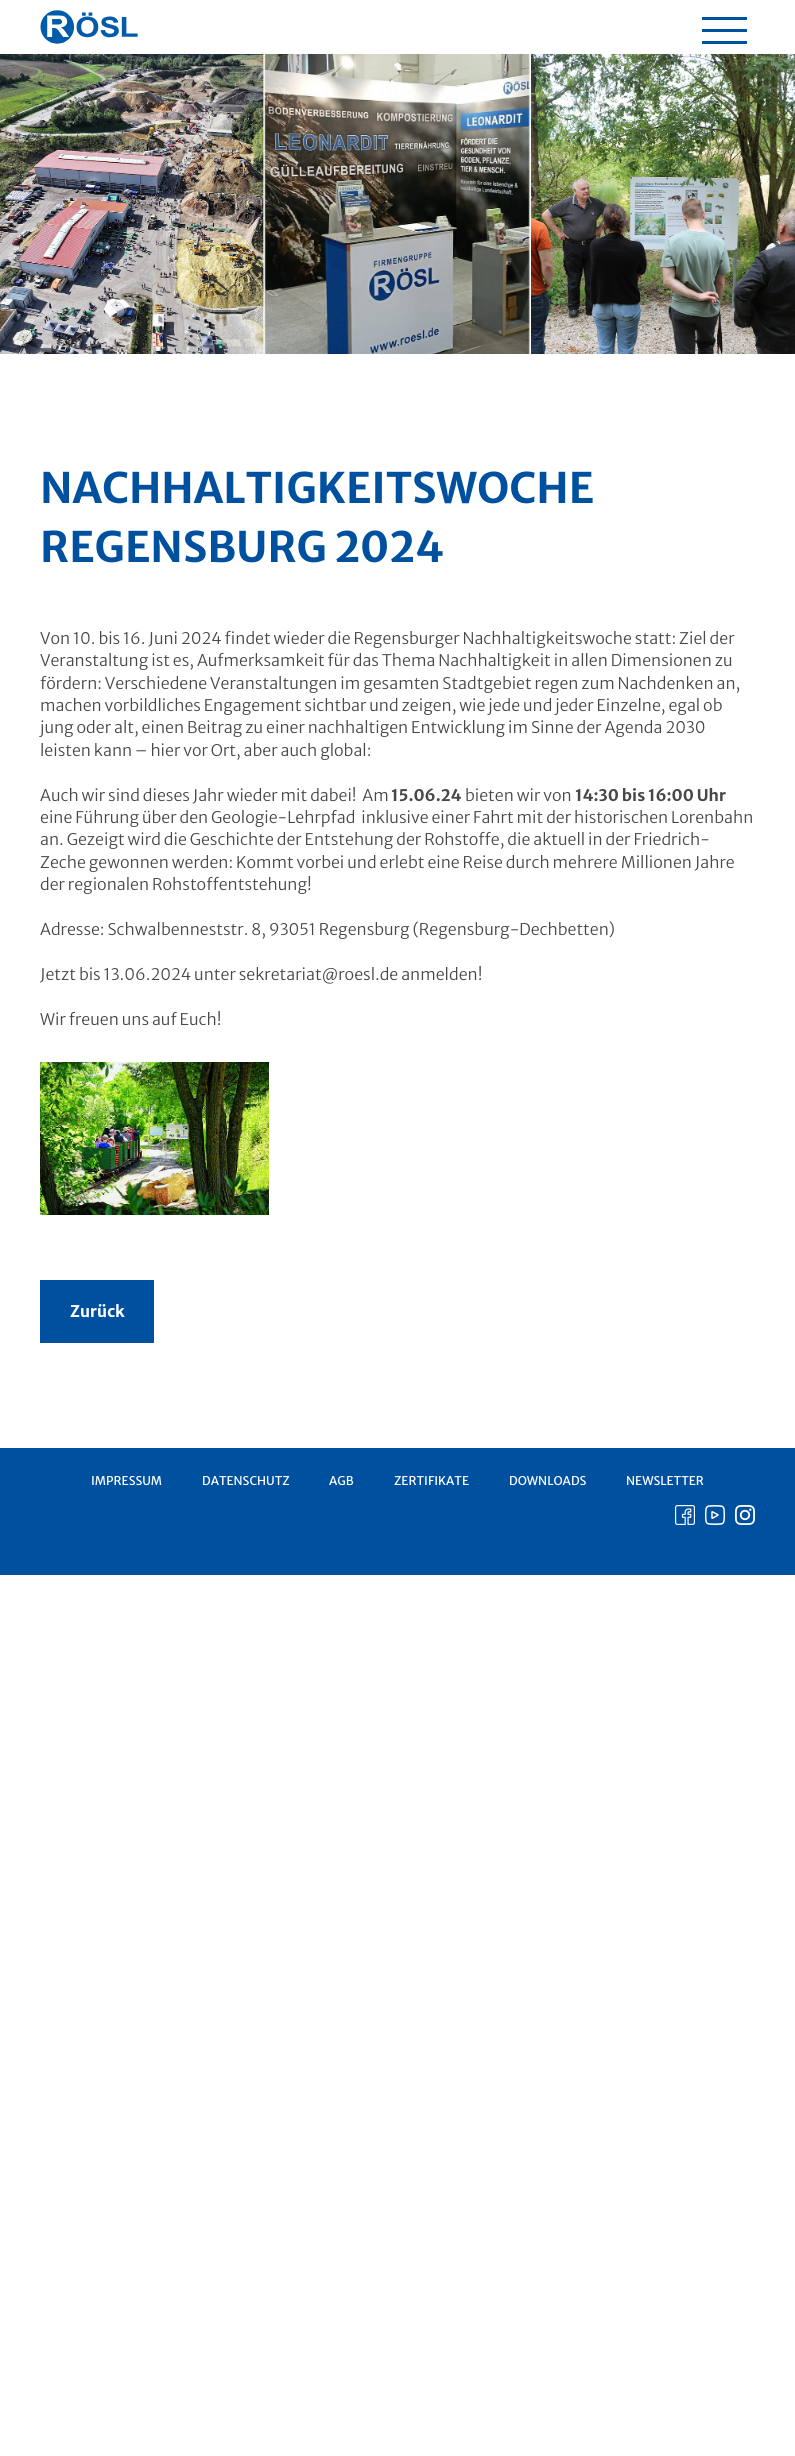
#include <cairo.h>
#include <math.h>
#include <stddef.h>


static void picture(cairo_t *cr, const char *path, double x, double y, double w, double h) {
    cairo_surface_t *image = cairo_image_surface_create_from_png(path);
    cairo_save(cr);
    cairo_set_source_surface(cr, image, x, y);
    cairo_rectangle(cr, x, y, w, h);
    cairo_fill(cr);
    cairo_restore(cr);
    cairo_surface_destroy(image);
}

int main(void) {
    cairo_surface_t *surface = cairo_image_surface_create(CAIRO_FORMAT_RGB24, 795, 2456);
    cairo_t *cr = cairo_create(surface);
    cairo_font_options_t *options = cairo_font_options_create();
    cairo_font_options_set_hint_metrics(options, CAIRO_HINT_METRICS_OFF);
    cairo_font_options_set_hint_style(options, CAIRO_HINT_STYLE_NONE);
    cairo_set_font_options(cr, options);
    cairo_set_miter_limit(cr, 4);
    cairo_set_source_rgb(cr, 1, 1, 1);
    cairo_paint(cr);
    picture(cr, "img1.png", 40, 10, 98, 34);
    cairo_set_source_rgb(cr, 0, 0.314, 0.627);
    cairo_rectangle(cr, 702, 29, 45, 3);
    cairo_fill(cr);
    cairo_rectangle(cr, 702, 17, 45, 3);
    cairo_fill(cr);
    cairo_rectangle(cr, 702, 41, 45, 3);
    cairo_fill(cr);
    picture(cr, "img2.png", 0, 54, 795, 300);
    cairo_select_font_face(cr, "Merriweather Sans", CAIRO_FONT_SLANT_NORMAL, CAIRO_FONT_WEIGHT_BOLD);
    cairo_set_font_size(cr, 42);
    cairo_move_to(cr, 40, 503);
    cairo_show_text(cr, "NACHHALTIGKEITSWOCHE");
    cairo_move_to(cr, 40, 562);
    cairo_show_text(cr, "REGENSBURG 2024");
    cairo_select_font_face(cr, "Merriweather Sans Light", CAIRO_FONT_SLANT_NORMAL, CAIRO_FONT_WEIGHT_NORMAL);
    cairo_set_font_size(cr, 16);
    cairo_set_source_rgb(cr, 0.282, 0.282, 0.282);
    cairo_move_to(cr, 40, 644);
    cairo_show_text(cr, "Von 10. bis 16. Juni 2024 findet wieder die Regensburger Nachhaltigkeitswoche statt: Ziel der");
    cairo_move_to(cr, 40, 666);
    cairo_show_text(cr, "Veranstaltung ist es, Aufmerksamkeit für das Thema Nachhaltigkeit in allen Dimensionen zu");
    cairo_move_to(cr, 40, 689);
    cairo_show_text(cr, "fördern: Verschiedene Veranstaltungen im gesamten Stadtgebiet regen zum Nachdenken an,");
    cairo_move_to(cr, 40, 711);
    cairo_show_text(cr, "machen vorbildliches Engagement sichtbar und zeigen, wie jede und jeder Einzelne, egal ob");
    cairo_move_to(cr, 40, 733);
    cairo_show_text(cr, "jung oder alt, einen Beitrag zu einer nachhaltigen Entwicklung im Sinne der Agenda 2030");
    cairo_move_to(cr, 40, 756);
    cairo_show_text(cr, "leisten kann – hier vor Ort, aber auch global:");
    cairo_move_to(cr, 40, 801);
    cairo_show_text(cr, "Auch wir sind dieses Jahr wieder mit dabei!  Am");
    cairo_select_font_face(cr, "Merriweather Sans", CAIRO_FONT_SLANT_NORMAL, CAIRO_FONT_WEIGHT_BOLD);
    cairo_move_to(cr, 391, 801);
    cairo_show_text(cr, "15.06.24");
    cairo_select_font_face(cr, "Merriweather Sans Light", CAIRO_FONT_SLANT_NORMAL, CAIRO_FONT_WEIGHT_NORMAL);
    cairo_move_to(cr, 465, 801);
    cairo_show_text(cr, "bieten wir von");
    cairo_select_font_face(cr, "Merriweather Sans", CAIRO_FONT_SLANT_NORMAL, CAIRO_FONT_WEIGHT_BOLD);
    cairo_move_to(cr, 575, 801);
    cairo_show_text(cr, "14:30 bis 16:00 Uhr");
    cairo_select_font_face(cr, "Merriweather Sans Light", CAIRO_FONT_SLANT_NORMAL, CAIRO_FONT_WEIGHT_NORMAL);
    cairo_move_to(cr, 40, 823);
    cairo_show_text(cr, "eine Führung über den Geologie-Lehrpfad  inklusive einer Fahrt mit der historischen Lorenbahn");
    cairo_move_to(cr, 40, 845);
    cairo_show_text(cr, "an. Gezeigt wird die Geschichte der Entstehung der Rohstoffe, die aktuell in der Friedrich-");
    cairo_move_to(cr, 40, 868);
    cairo_show_text(cr, "Zeche gewonnen werden: Kommt vorbei und erlebt eine Reise durch mehrere Millionen Jahre");
    cairo_move_to(cr, 40, 890);
    cairo_show_text(cr, "der regionalen Rohstoffentstehung!");
    cairo_move_to(cr, 40, 935);
    cairo_show_text(cr, "Adresse: Schwalbenneststr. 8, 93051 Regensburg (Regensburg-Dechbetten)");
    cairo_move_to(cr, 40, 980);
    cairo_show_text(cr, "Jetzt bis 13.06.2024 unter sekretariat@roesl.de anmelden!");
    cairo_move_to(cr, 40, 1025);
    cairo_show_text(cr, "Wir freuen uns auf Euch!");
    picture(cr, "img3.png", 40, 1062, 229, 153);
    cairo_set_source_rgb(cr, 0, 0.314, 0.627);
    cairo_rectangle(cr, 40, 1280, 114, 63);
    cairo_fill(cr);
    cairo_select_font_face(cr, "Merriweather Sans", CAIRO_FONT_SLANT_NORMAL, CAIRO_FONT_WEIGHT_BOLD);
    cairo_set_source_rgb(cr, 1, 1, 1);
    cairo_move_to(cr, 70, 1317);
    cairo_show_text(cr, "Zurück");
    cairo_set_source_rgb(cr, 0, 0.314, 0.627);
    cairo_rectangle(cr, 0, 1448, 795, 127);
    cairo_fill(cr);
    cairo_select_font_face(cr, "Merriweather Sans", CAIRO_FONT_SLANT_NORMAL, CAIRO_FONT_WEIGHT_NORMAL);
    cairo_set_font_size(cr, 12);
    cairo_set_source_rgb(cr, 1, 1, 1);
    cairo_move_to(cr, 91, 1485);
    cairo_show_text(cr, "IMPRESSUM");
    cairo_move_to(cr, 202, 1485);
    cairo_show_text(cr, "DATENSCHUTZ");
    cairo_move_to(cr, 329, 1485);
    cairo_show_text(cr, "AGB");
    cairo_move_to(cr, 394, 1485);
    cairo_show_text(cr, "ZERTIFIKATE");
    cairo_move_to(cr, 509, 1485);
    cairo_show_text(cr, "DOWNLOADS");
    cairo_move_to(cr, 626, 1485);
    cairo_show_text(cr, "NEWSLETTER");
    picture(cr, "img4.png", 675, 1505, 20, 20);
    picture(cr, "img5.png", 705, 1505, 20, 20);
    picture(cr, "img6.png", 735, 1505, 20, 20);
    cairo_surface_write_to_png(surface, "page.png");
    cairo_font_options_destroy(options);
    cairo_destroy(cr);
    cairo_surface_destroy(surface);
    return 0;
}
